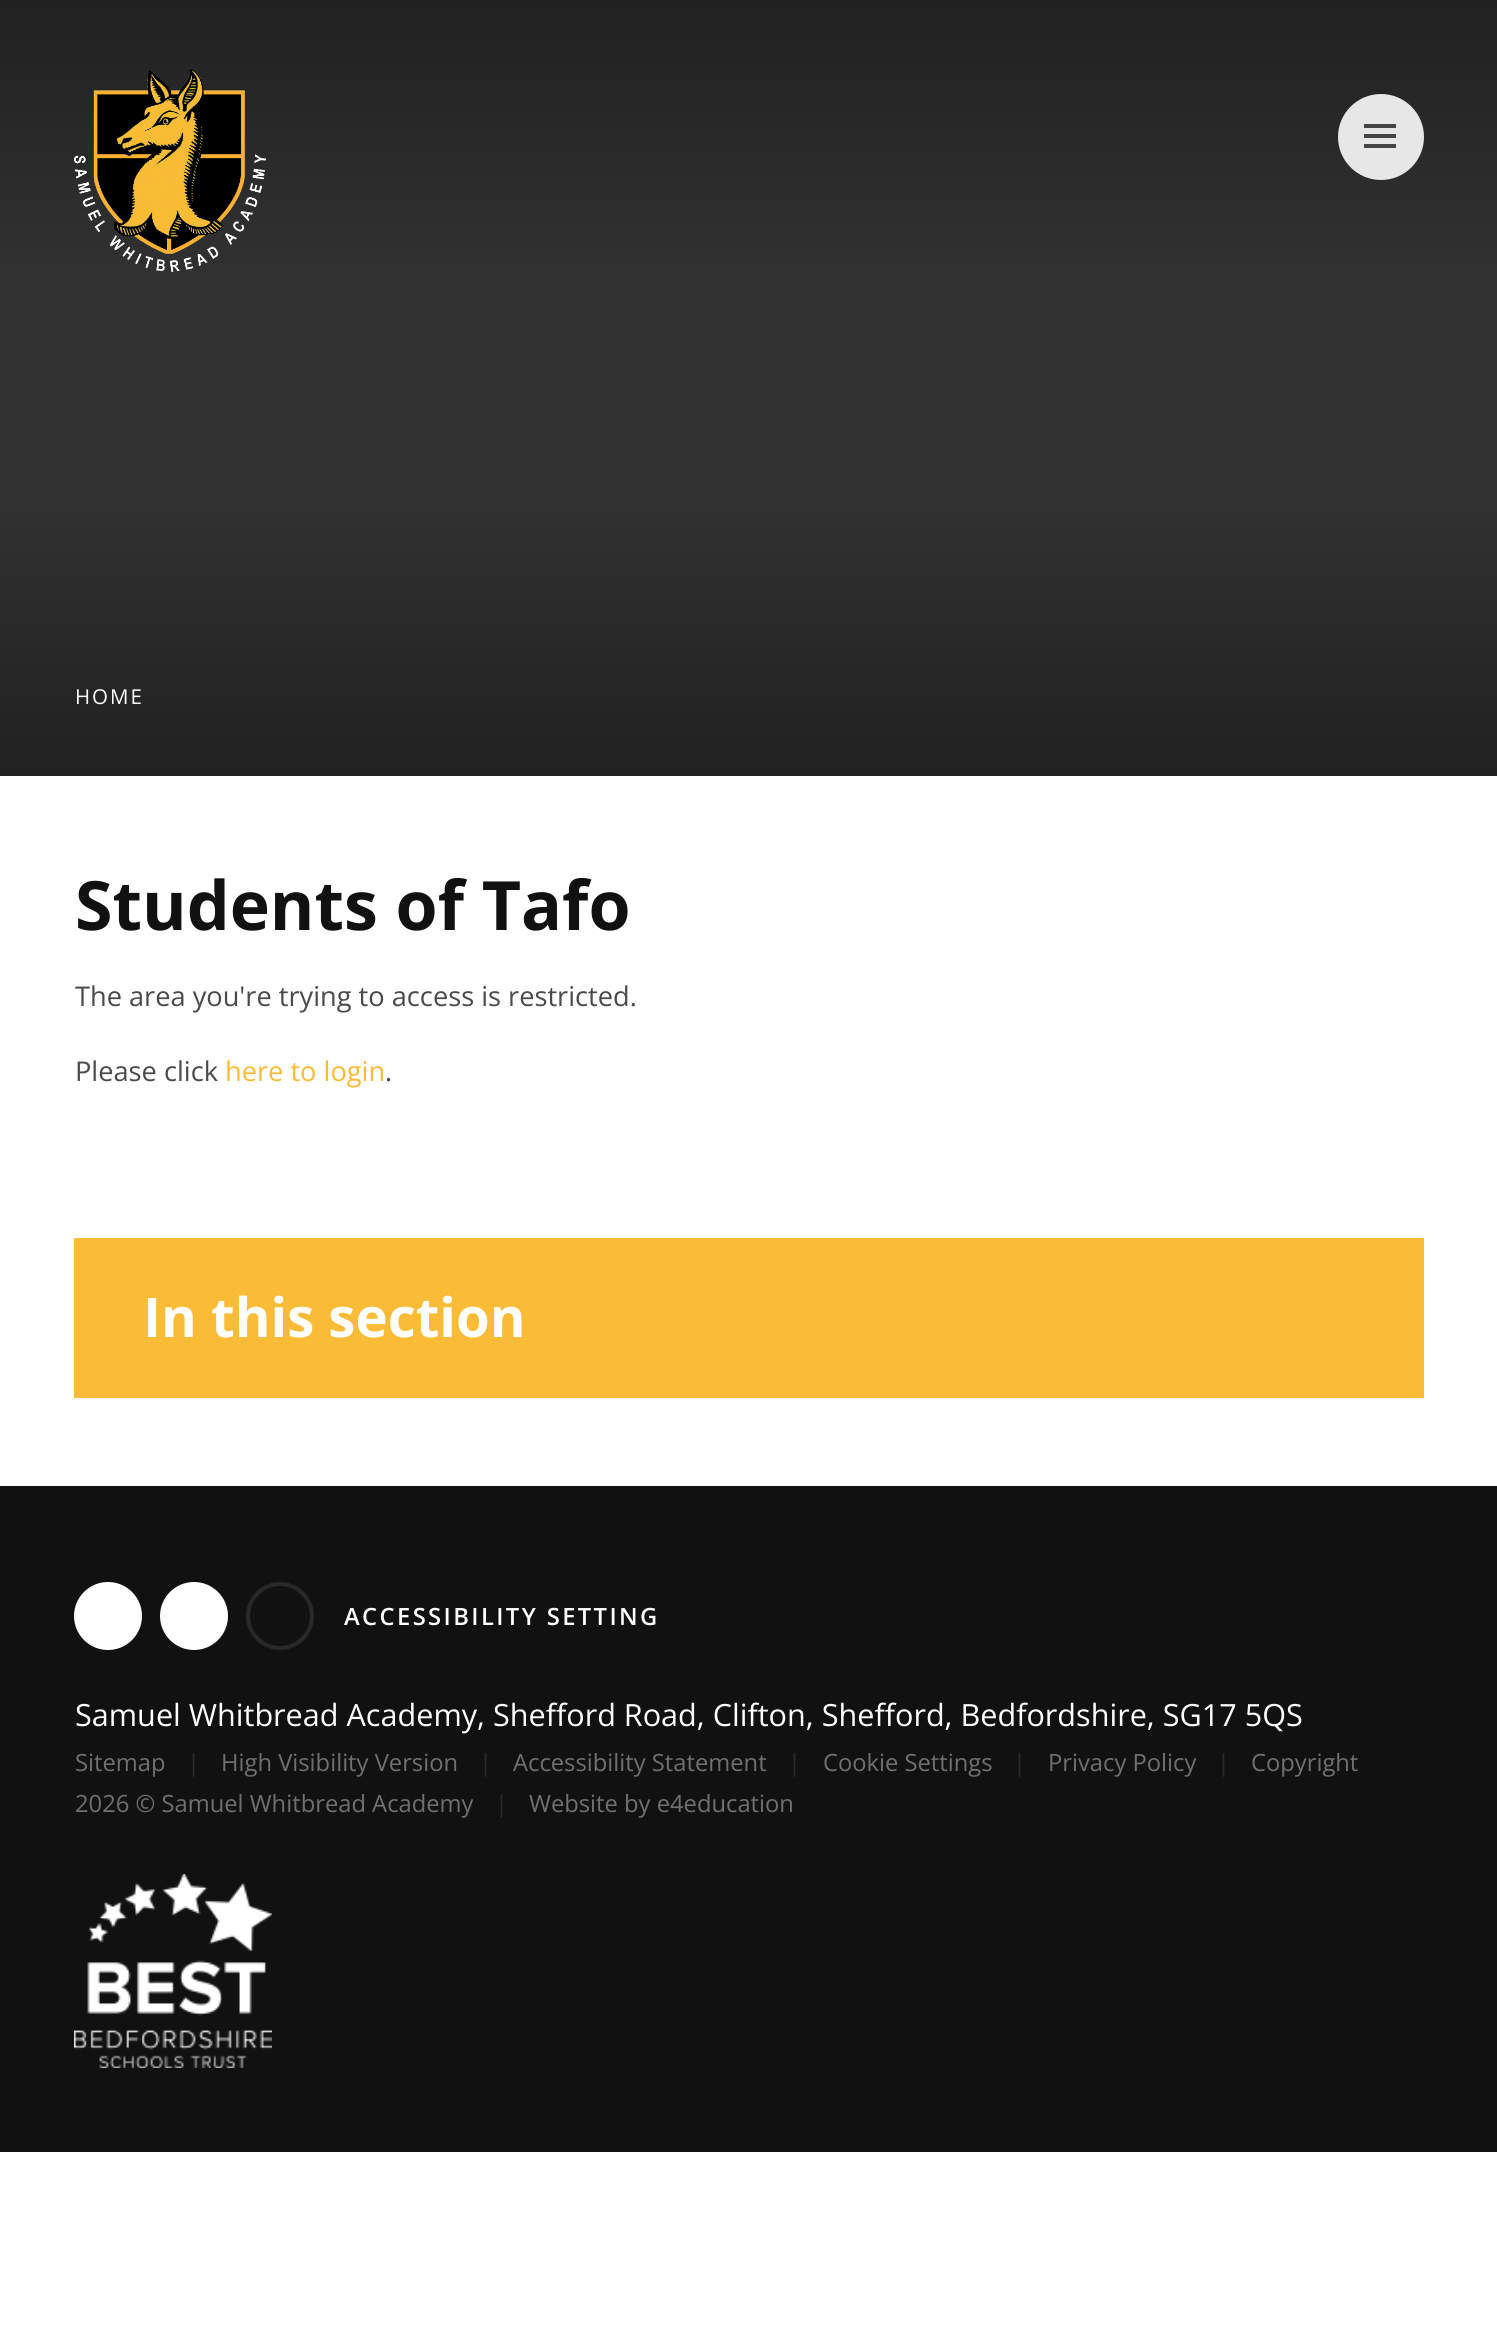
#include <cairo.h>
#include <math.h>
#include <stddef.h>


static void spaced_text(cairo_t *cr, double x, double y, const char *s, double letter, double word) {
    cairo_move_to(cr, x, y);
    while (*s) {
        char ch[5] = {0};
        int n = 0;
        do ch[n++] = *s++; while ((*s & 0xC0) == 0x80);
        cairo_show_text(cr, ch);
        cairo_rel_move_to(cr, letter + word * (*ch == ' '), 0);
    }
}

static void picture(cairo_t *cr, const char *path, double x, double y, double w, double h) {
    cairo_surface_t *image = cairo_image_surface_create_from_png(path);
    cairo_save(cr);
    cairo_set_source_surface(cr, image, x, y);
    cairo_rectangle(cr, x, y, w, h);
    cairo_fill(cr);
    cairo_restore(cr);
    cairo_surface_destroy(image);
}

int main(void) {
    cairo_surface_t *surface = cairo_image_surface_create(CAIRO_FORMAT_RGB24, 1497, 2343);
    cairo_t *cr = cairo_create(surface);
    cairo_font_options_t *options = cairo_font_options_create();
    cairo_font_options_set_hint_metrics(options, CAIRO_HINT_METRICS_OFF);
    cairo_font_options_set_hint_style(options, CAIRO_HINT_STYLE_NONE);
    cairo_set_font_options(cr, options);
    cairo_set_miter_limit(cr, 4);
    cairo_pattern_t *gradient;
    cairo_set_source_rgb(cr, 1, 1, 1);
    cairo_paint(cr);
    gradient = cairo_pattern_create_linear(749, 0, 749, 776);
    cairo_pattern_add_color_stop_rgba(gradient, 0, 0.129, 0.129, 0.129, 1);
    cairo_pattern_add_color_stop_rgba(gradient, 0.35, 0.192, 0.192, 0.192, 1);
    cairo_pattern_add_color_stop_rgba(gradient, 0.65, 0.192, 0.192, 0.192, 1);
    cairo_pattern_add_color_stop_rgba(gradient, 1, 0.129, 0.129, 0.129, 1);
    cairo_set_source(cr, gradient);
    cairo_pattern_destroy(gradient);
    cairo_rectangle(cr, 0, 0, 1497, 776);
    cairo_fill(cr);
    picture(cr, "img1.png", 74, 68, 192, 204);
    cairo_set_source_rgb(cr, 0.906, 0.906, 0.906);
    cairo_arc(cr, 1381, 137, 43, 0, 2 * M_PI);
    cairo_fill(cr);
    cairo_set_source_rgb(cr, 0.267, 0.267, 0.267);
    cairo_rectangle(cr, 1364, 124, 32, 4);
    cairo_fill(cr);
    cairo_rectangle(cr, 1364, 144, 32, 4);
    cairo_fill(cr);
    cairo_rectangle(cr, 1364, 134, 32, 4);
    cairo_fill(cr);
    cairo_select_font_face(cr, "Open Sans", CAIRO_FONT_SLANT_NORMAL, CAIRO_FONT_WEIGHT_NORMAL);
    cairo_set_font_size(cr, 20.5);
    cairo_set_source_rgb(cr, 1, 1, 1);
    spaced_text(cr, 75, 704, "HOME", 2, 0);
    cairo_select_font_face(cr, "Open Sans", CAIRO_FONT_SLANT_NORMAL, CAIRO_FONT_WEIGHT_BOLD);
    cairo_set_font_size(cr, 68);
    cairo_set_source_rgb(cr, 0.067, 0.067, 0.067);
    cairo_move_to(cr, 75, 930);
    cairo_show_text(cr, "Students of Tafo");
    cairo_select_font_face(cr, "Open Sans", CAIRO_FONT_SLANT_NORMAL, CAIRO_FONT_WEIGHT_NORMAL);
    cairo_set_font_size(cr, 27.2);
    cairo_set_source_rgb(cr, 0.29, 0.29, 0.29);
    cairo_move_to(cr, 75, 1006);
    cairo_show_text(cr, "The area you're trying to access is restricted.");
    cairo_move_to(cr, 75, 1081);
    cairo_show_text(cr, "Please click");
    cairo_set_source_rgb(cr, 0.98, 0.737, 0.212);
    cairo_move_to(cr, 225, 1081);
    cairo_show_text(cr, "here to login");
    cairo_set_source_rgb(cr, 0.29, 0.29, 0.29);
    cairo_move_to(cr, 385, 1081);
    cairo_show_text(cr, ".");
    cairo_set_source_rgb(cr, 0.98, 0.737, 0.212);
    cairo_rectangle(cr, 74, 1238, 1350, 160);
    cairo_fill(cr);
    cairo_select_font_face(cr, "Open Sans", CAIRO_FONT_SLANT_NORMAL, CAIRO_FONT_WEIGHT_BOLD);
    cairo_set_font_size(cr, 54.5);
    cairo_set_source_rgb(cr, 1, 1, 1);
    cairo_move_to(cr, 143, 1337);
    cairo_show_text(cr, "In this section");
    cairo_set_source_rgb(cr, 0.067, 0.067, 0.067);
    cairo_rectangle(cr, 0, 1486, 1497, 666);
    cairo_fill(cr);
    cairo_set_source_rgb(cr, 1, 1, 1);
    cairo_arc(cr, 108, 1616, 34, 0, 2 * M_PI);
    cairo_fill(cr);
    cairo_arc(cr, 194, 1616, 34, 0, 2 * M_PI);
    cairo_fill(cr);
    cairo_arc(cr, 280, 1616, 32, 0, 2 * M_PI);
    cairo_set_source_rgb(cr, 0.161, 0.161, 0.161);
    cairo_set_line_width(cr, 4);
    cairo_stroke(cr);
    cairo_select_font_face(cr, "Open Sans SemiBold", CAIRO_FONT_SLANT_NORMAL, CAIRO_FONT_WEIGHT_NORMAL);
    cairo_set_font_size(cr, 23.75);
    cairo_set_source_rgb(cr, 1, 1, 1);
    spaced_text(cr, 344, 1625, "ACCESSIBILITY SETTING", 2.4, 0);
    cairo_select_font_face(cr, "Open Sans", CAIRO_FONT_SLANT_NORMAL, CAIRO_FONT_WEIGHT_NORMAL);
    cairo_set_font_size(cr, 30.6);
    cairo_move_to(cr, 75, 1726);
    cairo_show_text(cr, "Samuel Whitbread Academy, Shefford Road, Clifton, Shefford, Bedfordshire, SG17 5QS");
    cairo_set_font_size(cr, 23.75);
    cairo_set_source_rgb(cr, 0.439, 0.439, 0.439);
    cairo_move_to(cr, 75, 1771);
    cairo_show_text(cr, "Sitemap");
    cairo_set_source_rgb(cr, 0.169, 0.169, 0.169);
    cairo_move_to(cr, 187, 1771);
    cairo_show_text(cr, "|");
    cairo_set_source_rgb(cr, 0.439, 0.439, 0.439);
    cairo_move_to(cr, 221, 1771);
    cairo_show_text(cr, "High Visibility Version");
    cairo_set_source_rgb(cr, 0.169, 0.169, 0.169);
    cairo_move_to(cr, 479, 1771);
    cairo_show_text(cr, "|");
    cairo_set_source_rgb(cr, 0.439, 0.439, 0.439);
    cairo_move_to(cr, 513, 1771);
    cairo_show_text(cr, "Accessibility Statement");
    cairo_set_source_rgb(cr, 0.169, 0.169, 0.169);
    cairo_move_to(cr, 788, 1771);
    cairo_show_text(cr, "|");
    cairo_set_source_rgb(cr, 0.439, 0.439, 0.439);
    cairo_move_to(cr, 823, 1771);
    cairo_show_text(cr, "Cookie Settings");
    cairo_set_source_rgb(cr, 0.169, 0.169, 0.169);
    cairo_move_to(cr, 1013, 1771);
    cairo_show_text(cr, "|");
    cairo_set_source_rgb(cr, 0.439, 0.439, 0.439);
    cairo_move_to(cr, 1048, 1771);
    cairo_show_text(cr, "Privacy Policy");
    cairo_set_source_rgb(cr, 0.169, 0.169, 0.169);
    cairo_move_to(cr, 1217, 1771);
    cairo_show_text(cr, "|");
    cairo_set_source_rgb(cr, 0.439, 0.439, 0.439);
    cairo_move_to(cr, 1251, 1771);
    cairo_show_text(cr, "Copyright");
    cairo_move_to(cr, 75, 1812);
    cairo_show_text(cr, "2026 © Samuel Whitbread Academy");
    cairo_set_source_rgb(cr, 0.169, 0.169, 0.169);
    cairo_move_to(cr, 495, 1812);
    cairo_show_text(cr, "|");
    cairo_set_source_rgb(cr, 0.439, 0.439, 0.439);
    cairo_move_to(cr, 529, 1812);
    cairo_show_text(cr, "Website by e4education");
    picture(cr, "img2.png", 74, 1874, 198, 194);
    cairo_surface_write_to_png(surface, "page.png");
    cairo_font_options_destroy(options);
    cairo_destroy(cr);
    cairo_surface_destroy(surface);
    return 0;
}
